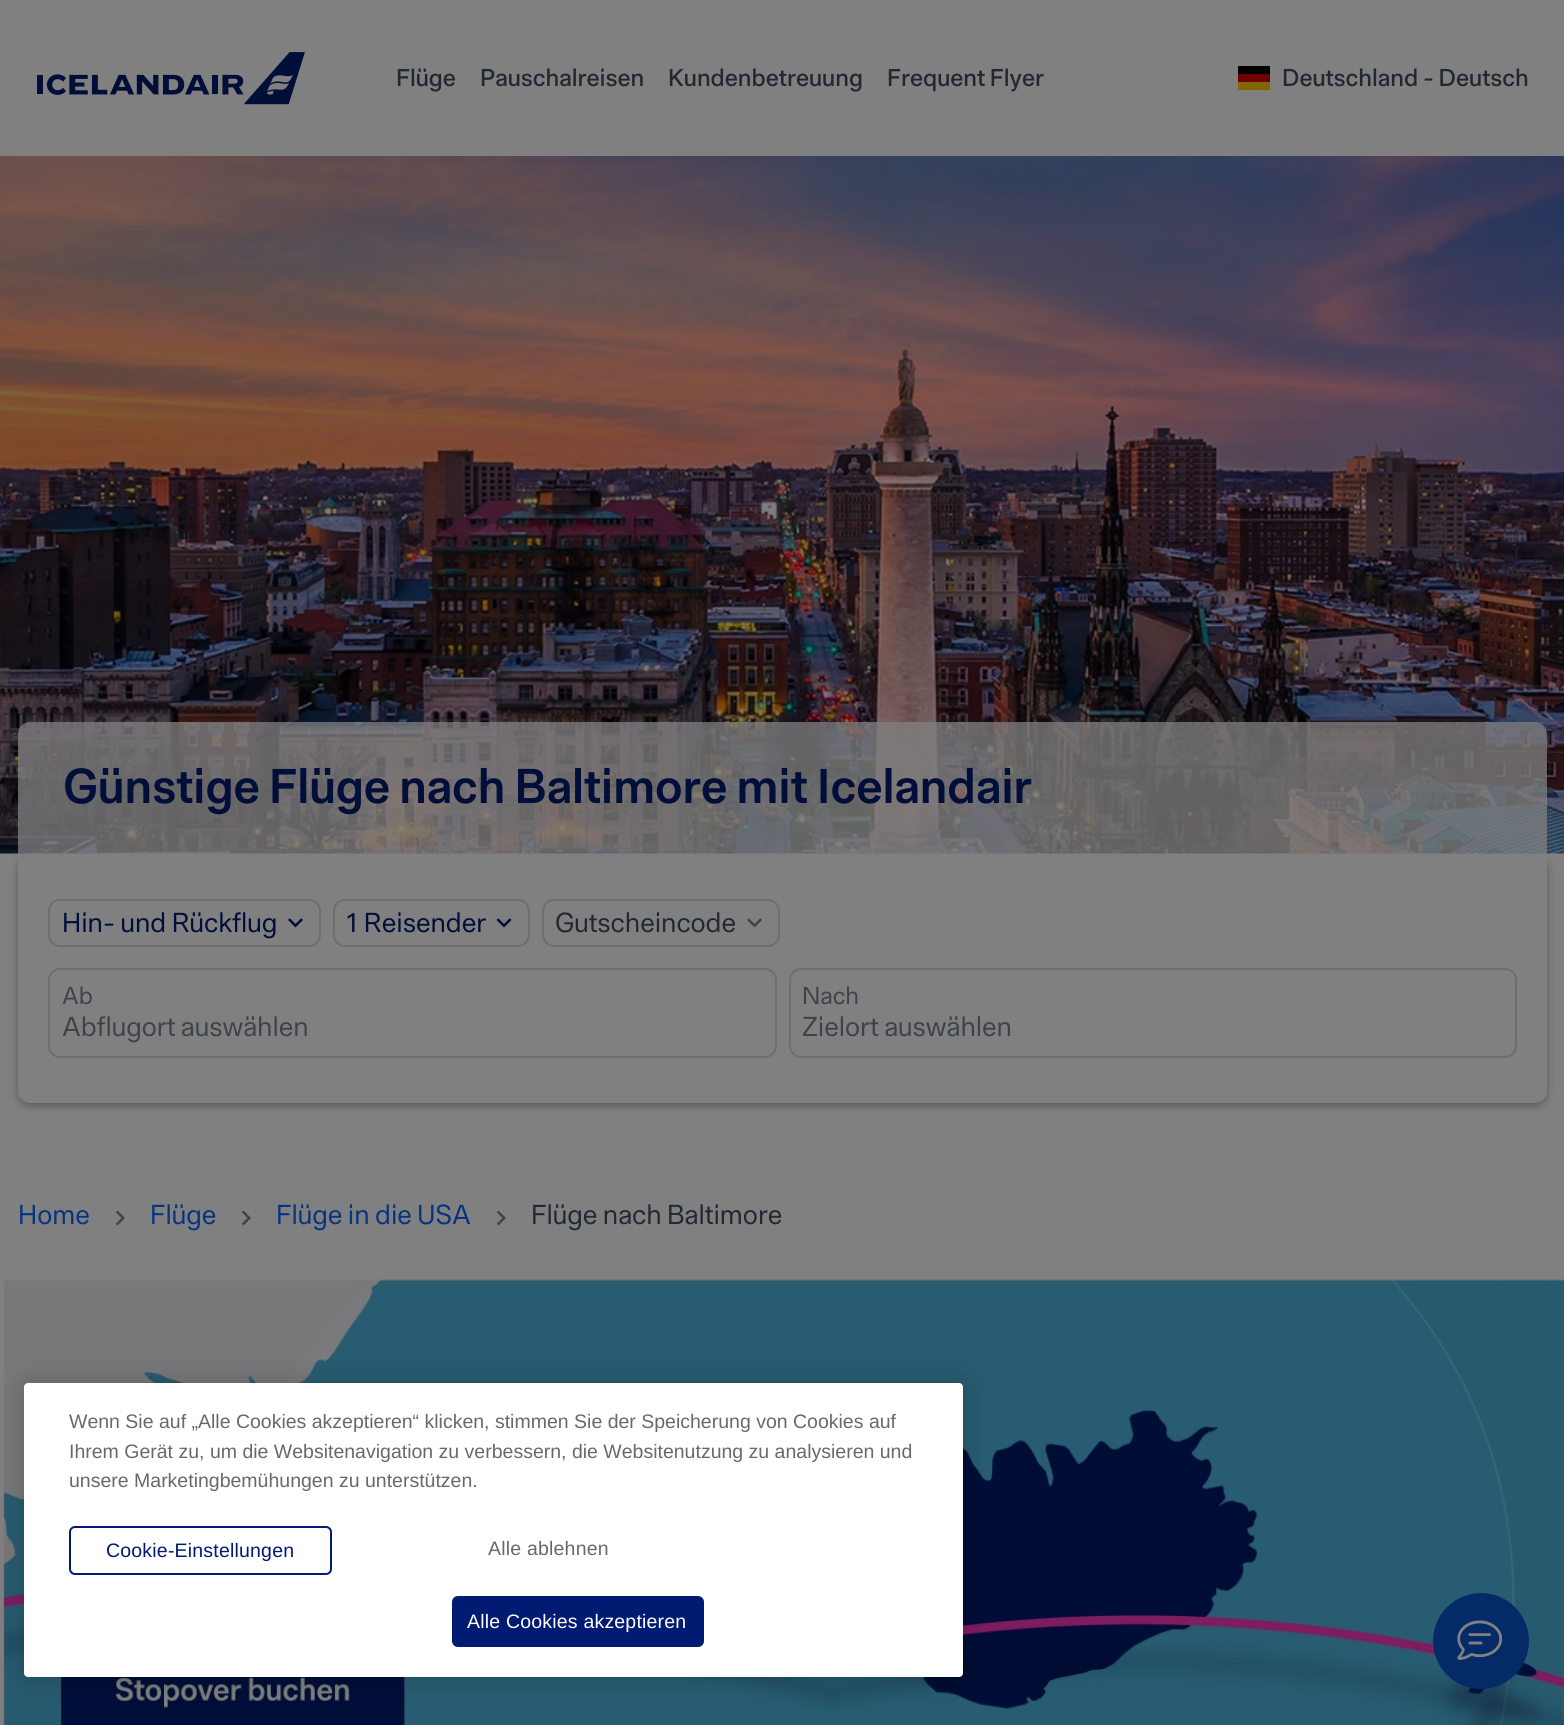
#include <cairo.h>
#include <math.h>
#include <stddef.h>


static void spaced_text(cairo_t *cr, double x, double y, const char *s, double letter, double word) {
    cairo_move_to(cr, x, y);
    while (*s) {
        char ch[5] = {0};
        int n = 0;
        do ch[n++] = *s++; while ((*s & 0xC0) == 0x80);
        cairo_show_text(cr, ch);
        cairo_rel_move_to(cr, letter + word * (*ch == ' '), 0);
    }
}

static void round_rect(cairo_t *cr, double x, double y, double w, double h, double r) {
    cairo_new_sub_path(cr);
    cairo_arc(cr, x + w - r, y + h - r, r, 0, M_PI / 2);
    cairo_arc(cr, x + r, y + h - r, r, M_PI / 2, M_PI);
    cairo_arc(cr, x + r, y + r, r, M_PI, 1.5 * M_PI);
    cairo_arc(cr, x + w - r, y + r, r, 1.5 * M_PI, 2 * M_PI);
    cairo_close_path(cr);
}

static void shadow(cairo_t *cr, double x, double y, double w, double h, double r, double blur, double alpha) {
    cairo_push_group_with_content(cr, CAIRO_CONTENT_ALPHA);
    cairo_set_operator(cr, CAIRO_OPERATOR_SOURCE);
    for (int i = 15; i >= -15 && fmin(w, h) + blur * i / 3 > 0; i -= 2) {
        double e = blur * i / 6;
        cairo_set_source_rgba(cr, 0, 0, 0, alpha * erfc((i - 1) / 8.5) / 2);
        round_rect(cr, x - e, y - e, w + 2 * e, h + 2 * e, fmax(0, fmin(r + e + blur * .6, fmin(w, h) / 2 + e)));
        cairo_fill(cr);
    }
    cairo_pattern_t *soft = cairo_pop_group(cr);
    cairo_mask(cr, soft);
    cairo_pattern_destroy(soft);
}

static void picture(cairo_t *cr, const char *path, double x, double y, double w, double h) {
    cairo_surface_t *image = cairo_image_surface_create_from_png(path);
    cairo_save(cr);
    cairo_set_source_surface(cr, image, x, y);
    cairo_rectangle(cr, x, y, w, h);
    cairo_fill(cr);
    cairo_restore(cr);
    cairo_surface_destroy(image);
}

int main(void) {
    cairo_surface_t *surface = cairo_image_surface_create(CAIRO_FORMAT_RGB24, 1564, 1725);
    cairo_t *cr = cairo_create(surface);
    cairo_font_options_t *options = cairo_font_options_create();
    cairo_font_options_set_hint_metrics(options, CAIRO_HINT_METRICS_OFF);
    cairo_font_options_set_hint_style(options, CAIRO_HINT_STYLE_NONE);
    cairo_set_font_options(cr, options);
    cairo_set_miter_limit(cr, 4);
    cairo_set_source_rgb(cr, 0.502, 0.502, 0.502);
    cairo_paint(cr);
    picture(cr, "img1.png", 37, 52, 268, 53);
    cairo_select_font_face(cr, "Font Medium", CAIRO_FONT_SLANT_NORMAL, CAIRO_FONT_WEIGHT_NORMAL);
    cairo_set_font_size(cr, 24);
    cairo_set_source_rgb(cr, 0.133, 0.157, 0.196);
    cairo_move_to(cr, 396, 86);
    cairo_show_text(cr, "Flüge");
    cairo_move_to(cr, 480, 86);
    cairo_show_text(cr, "Pauschalreisen");
    cairo_move_to(cr, 668, 86);
    cairo_show_text(cr, "Kundenbetreuung");
    cairo_move_to(cr, 887, 86);
    cairo_show_text(cr, "Frequent Flyer");
    cairo_set_source_rgb(cr, 0.502, 0.404, 0);
    cairo_rectangle(cr, 1238, 82, 32, 8);
    cairo_fill(cr);
    cairo_set_source_rgb(cr, 0, 0, 0);
    cairo_rectangle(cr, 1238, 66, 32, 8);
    cairo_fill(cr);
    cairo_set_source_rgb(cr, 0.435, 0, 0);
    cairo_rectangle(cr, 1238, 74, 32, 8);
    cairo_fill(cr);
    cairo_set_source_rgb(cr, 0.133, 0.157, 0.196);
    cairo_move_to(cr, 1282, 86);
    cairo_show_text(cr, "Deutschland - Deutsch");
    picture(cr, "img2.png", 0, 156, 1564, 698);
    cairo_set_source_rgb(cr, 0, 0, 0);
    shadow(cr, 18, 857, 1529, 249, 12, 4, 0.3);
    cairo_set_source_rgba(cr, 0.502, 0.502, 0.502, 0.75);
    cairo_new_path(cr);
    cairo_move_to(cr, 30, 722);
    cairo_line_to(cr, 1535, 722);
    cairo_curve_to(cr, 1541.5, 722, 1547, 727.5, 1547, 734);
    cairo_line_to(cr, 1547, 854);
    cairo_line_to(cr, 18, 854);
    cairo_line_to(cr, 18, 734);
    cairo_curve_to(cr, 18, 727.5, 23.5, 722, 30, 722);
    cairo_close_path(cr);
    cairo_fill(cr);
    cairo_select_font_face(cr, "Font SemiBold", CAIRO_FONT_SLANT_NORMAL, CAIRO_FONT_WEIGHT_NORMAL);
    cairo_set_font_size(cr, 48);
    cairo_set_source_rgb(cr, 0, 0.055, 0.224);
    cairo_move_to(cr, 63, 803);
    cairo_show_text(cr, "Günstige Flüge nach Baltimore mit Icelandair");
    cairo_set_source_rgb(cr, 0.502, 0.502, 0.502);
    cairo_new_path(cr);
    cairo_move_to(cr, 18, 854);
    cairo_line_to(cr, 1547, 854);
    cairo_line_to(cr, 1547, 1091);
    cairo_curve_to(cr, 1547, 1097.5, 1541.5, 1103, 1535, 1103);
    cairo_line_to(cr, 30, 1103);
    cairo_curve_to(cr, 23.5, 1103, 18, 1097.5, 18, 1091);
    cairo_close_path(cr);
    cairo_fill(cr);
    round_rect(cr, 49, 900, 271, 46, 11);
    cairo_set_source_rgb(cr, 0.427, 0.431, 0.439);
    cairo_stroke(cr);
    cairo_select_font_face(cr, "Font", CAIRO_FONT_SLANT_NORMAL, CAIRO_FONT_WEIGHT_NORMAL);
    cairo_set_font_size(cr, 27);
    cairo_set_source_rgb(cr, 0, 0.055, 0.224);
    cairo_move_to(cr, 62, 932);
    cairo_show_text(cr, "Hin- und Rückflug");
    picture(cr, "img3.png", 288, 918, 15, 10);
    round_rect(cr, 334, 900, 195, 46, 11);
    cairo_set_source_rgb(cr, 0.427, 0.431, 0.439);
    cairo_stroke(cr);
    cairo_set_source_rgb(cr, 0, 0.055, 0.224);
    cairo_move_to(cr, 346, 932);
    cairo_show_text(cr, "1 Reisender");
    picture(cr, "img4.png", 496, 918, 16, 10);
    round_rect(cr, 543, 900, 236, 46, 11);
    cairo_set_source_rgb(cr, 0.427, 0.431, 0.439);
    cairo_stroke(cr);
    cairo_set_source_rgb(cr, 0.133, 0.157, 0.196);
    cairo_move_to(cr, 555, 932);
    cairo_show_text(cr, "Gutscheincode");
    picture(cr, "img5.png", 747, 918, 15, 10);
    round_rect(cr, 49, 969, 727, 88, 11);
    cairo_set_source_rgb(cr, 0.427, 0.431, 0.439);
    cairo_stroke(cr);
    cairo_set_font_size(cr, 24);
    cairo_set_source_rgb(cr, 0.243, 0.263, 0.29);
    cairo_move_to(cr, 62, 1004);
    cairo_show_text(cr, "Ab");
    cairo_set_font_size(cr, 27);
    cairo_move_to(cr, 62, 1036);
    cairo_show_text(cr, "Abflugort auswählen");
    round_rect(cr, 790, 969, 726, 88, 11);
    cairo_set_source_rgb(cr, 0.427, 0.431, 0.439);
    cairo_stroke(cr);
    cairo_set_font_size(cr, 24);
    cairo_set_source_rgb(cr, 0.243, 0.263, 0.29);
    cairo_move_to(cr, 802, 1004);
    cairo_show_text(cr, "Nach");
    cairo_save(cr);
    cairo_rectangle(cr, 803, 1011, 700, 32);
    cairo_clip(cr);
    cairo_set_font_size(cr, 27);
    cairo_move_to(cr, 802, 1036);
    cairo_show_text(cr, "Zielort auswählen");
    cairo_restore(cr);
    cairo_set_font_size(cr, 27);
    cairo_set_source_rgb(cr, 0.024, 0.204, 0.502);
    cairo_move_to(cr, 18, 1224);
    cairo_show_text(cr, "Home");
    picture(cr, "img6.png", 115, 1210, 10, 16);
    cairo_move_to(cr, 150, 1224);
    cairo_show_text(cr, "Flüge");
    picture(cr, "img6.png", 241, 1210, 10, 16);
    cairo_move_to(cr, 276, 1224);
    cairo_show_text(cr, "Flüge in die USA");
    picture(cr, "img6.png", 496, 1210, 10, 16);
    cairo_set_source_rgb(cr, 0.133, 0.157, 0.196);
    cairo_move_to(cr, 531, 1224);
    cairo_show_text(cr, "Flüge nach Baltimore");
    picture(cr, "img7.png", 3, 1279, 1561, 446);
    cairo_set_source_rgb(cr, 0, 0, 0);
    shadow(cr, 24, 1383, 939, 294, 4, 13.5, 0.2);
    cairo_set_source_rgb(cr, 1, 1, 1);
    round_rect(cr, 24, 1383, 939, 294, 4);
    cairo_fill(cr);
    cairo_select_font_face(cr, "Liberation Sans", CAIRO_FONT_SLANT_NORMAL, CAIRO_FONT_WEIGHT_NORMAL);
    cairo_set_font_size(cr, 19.5);
    cairo_set_source_rgb(cr, 0.412, 0.412, 0.412);
    cairo_move_to(cr, 69, 1428);
    cairo_show_text(cr, "Wenn Sie auf „Alle Cookies akzeptieren“ klicken, stimmen Sie der Speicherung von Cookies auf");
    cairo_move_to(cr, 69, 1458);
    cairo_show_text(cr, "Ihrem Gerät zu, um die Websitenavigation zu verbessern, die Websitenutzung zu analysieren und");
    cairo_move_to(cr, 69, 1487);
    cairo_show_text(cr, "unsere Marketingbemühungen zu unterstützen.");
    round_rect(cr, 70, 1527, 261, 47, 5);
    cairo_set_source_rgb(cr, 0, 0.106, 0.443);
    cairo_stroke(cr);
    spaced_text(cr, 106, 1557, "Cookie-Einstellungen", 0.2, 0);
    cairo_set_source_rgb(cr, 0.412, 0.412, 0.412);
    spaced_text(cr, 488, 1555, "Alle ablehnen", 0.2, 0);
    cairo_set_source_rgb(cr, 0, 0.106, 0.443);
    round_rect(cr, 453, 1597, 250, 49, 5);
    cairo_fill_preserve(cr);
    cairo_stroke(cr);
    cairo_set_source_rgb(cr, 1, 1, 1);
    spaced_text(cr, 467, 1628, "Alle Cookies akzeptieren", 0.2, 0);
    cairo_set_source_rgb(cr, 0.02, 0.165, 0.408);
    cairo_new_path(cr);
    cairo_arc(cr, 1481, 1641, 48, 0, 2 * M_PI);
    cairo_fill(cr);
    picture(cr, "img8.png", 1457, 1620, 45, 40);
    cairo_surface_write_to_png(surface, "page.png");
    cairo_font_options_destroy(options);
    cairo_destroy(cr);
    cairo_surface_destroy(surface);
    return 0;
}
